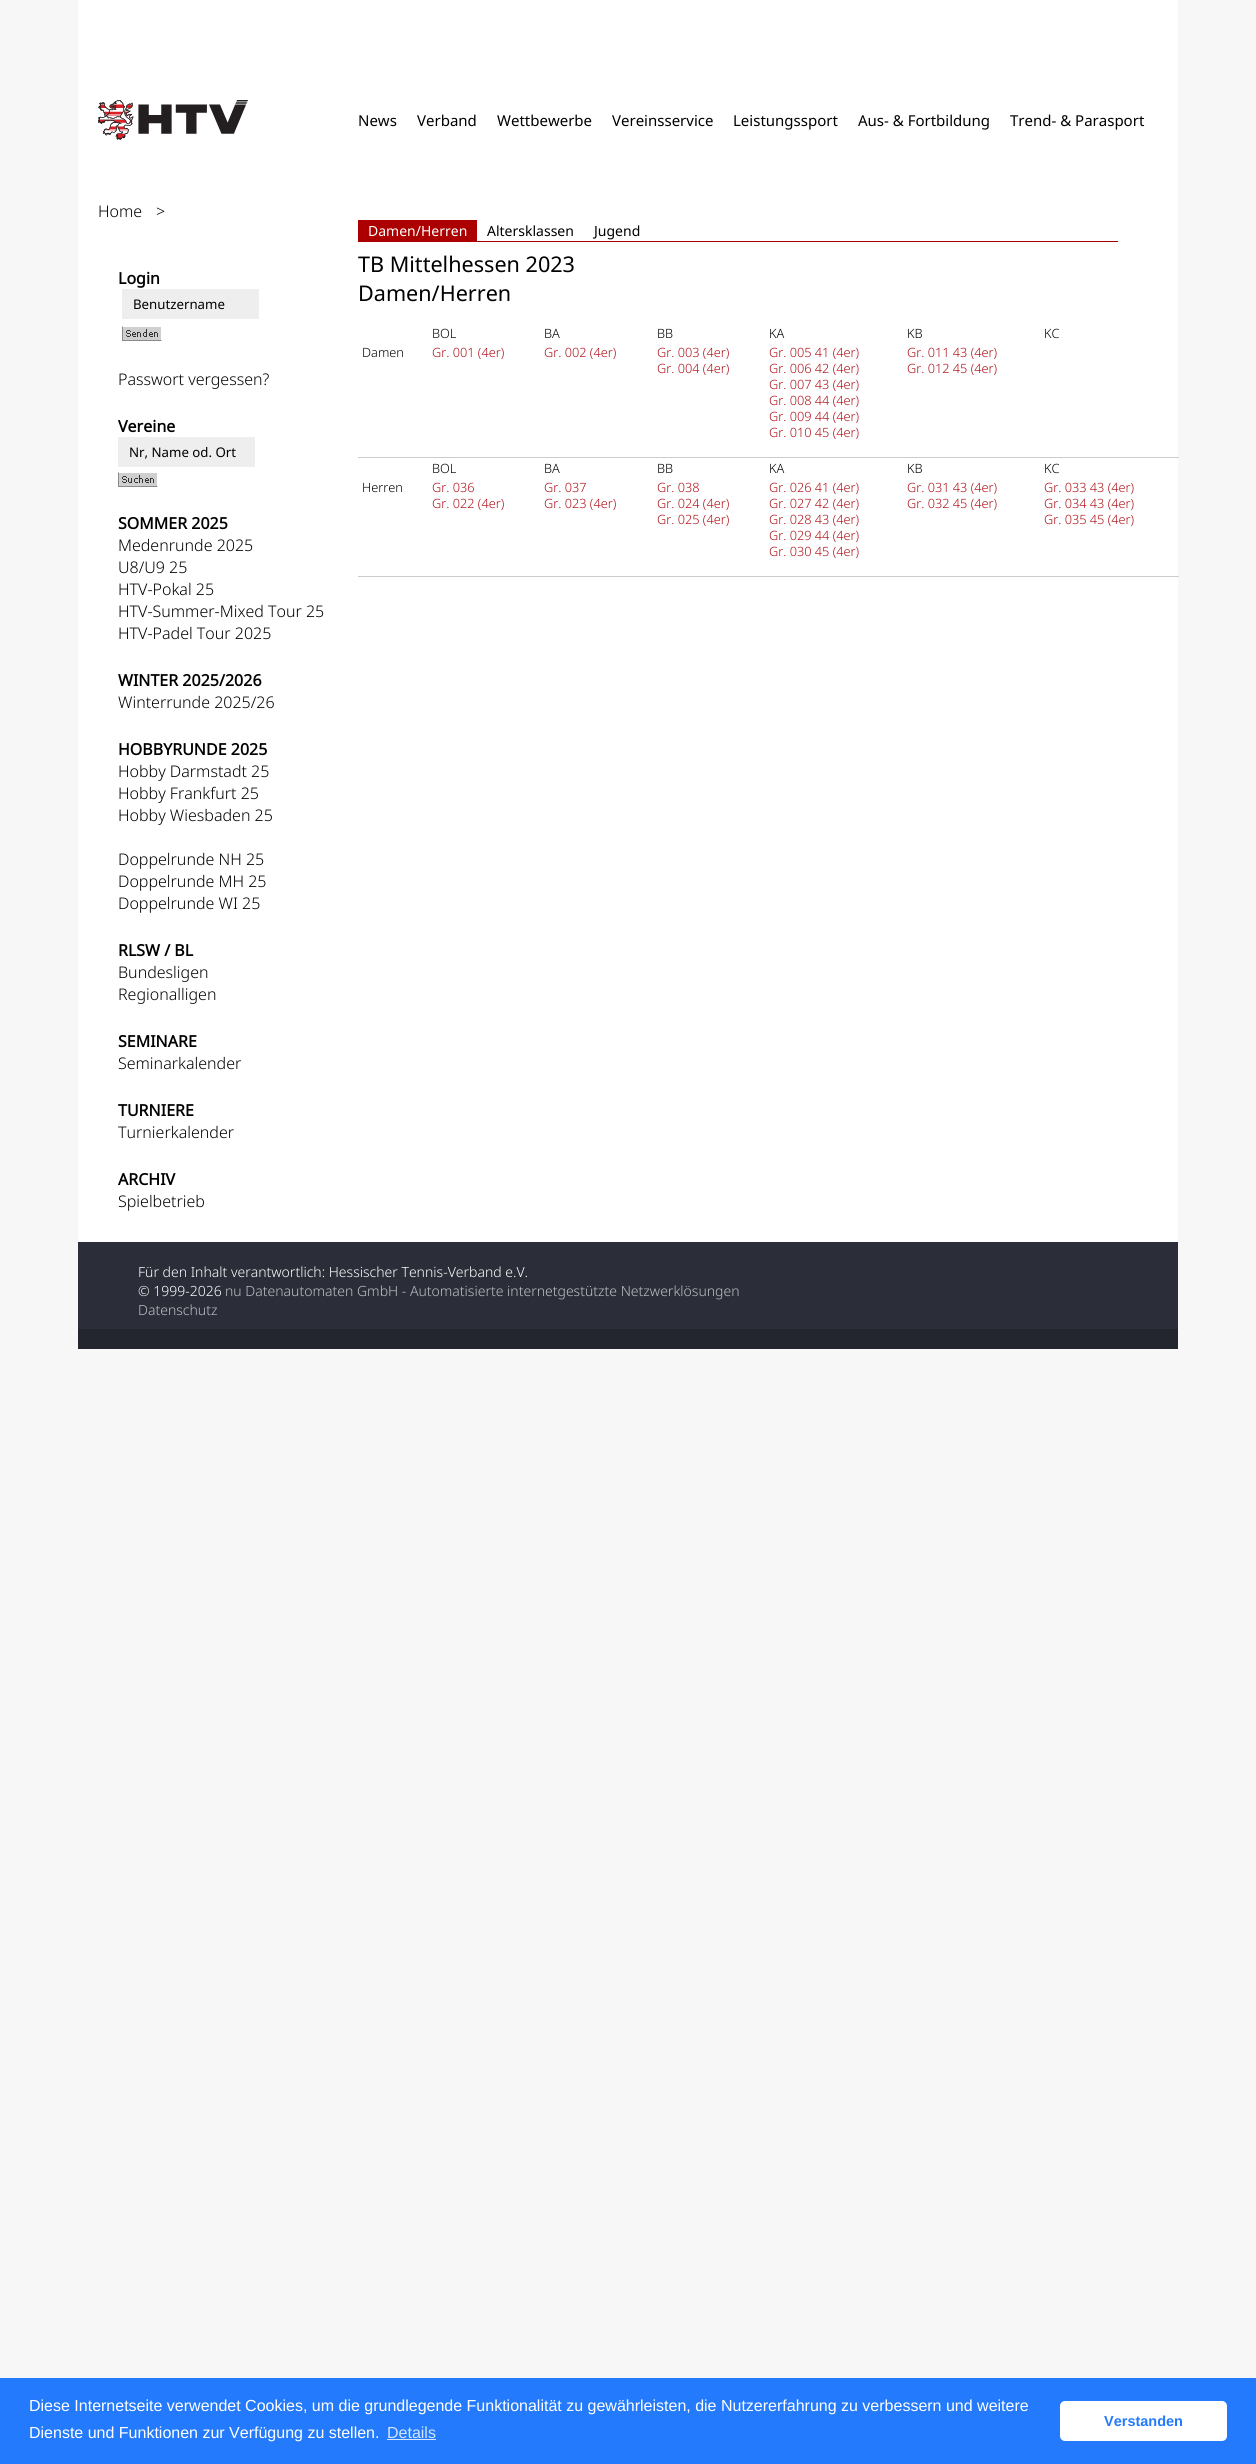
#include <cairo.h>
#include <math.h>
#include <stddef.h>


static void round_rect(cairo_t *cr, double x, double y, double w, double h, double r) {
    cairo_new_sub_path(cr);
    cairo_arc(cr, x + w - r, y + h - r, r, 0, M_PI / 2);
    cairo_arc(cr, x + r, y + h - r, r, M_PI / 2, M_PI);
    cairo_arc(cr, x + r, y + r, r, M_PI, 1.5 * M_PI);
    cairo_arc(cr, x + w - r, y + r, r, 1.5 * M_PI, 2 * M_PI);
    cairo_close_path(cr);
}

static void picture(cairo_t *cr, const char *path, double x, double y, double w, double h) {
    cairo_surface_t *image = cairo_image_surface_create_from_png(path);
    cairo_save(cr);
    cairo_set_source_surface(cr, image, x, y);
    cairo_rectangle(cr, x, y, w, h);
    cairo_fill(cr);
    cairo_restore(cr);
    cairo_surface_destroy(image);
}

int main(void) {
    cairo_surface_t *surface = cairo_image_surface_create(CAIRO_FORMAT_RGB24, 1256, 2464);
    cairo_t *cr = cairo_create(surface);
    cairo_font_options_t *options = cairo_font_options_create();
    cairo_font_options_set_hint_metrics(options, CAIRO_HINT_METRICS_OFF);
    cairo_font_options_set_hint_style(options, CAIRO_HINT_STYLE_NONE);
    cairo_set_font_options(cr, options);
    cairo_set_miter_limit(cr, 4);
    cairo_set_source_rgb(cr, 0.965, 0.965, 0.965);
    cairo_paint(cr);
    cairo_set_source_rgb(cr, 1, 1, 1);
    cairo_rectangle(cr, 78, 0, 1100, 1242);
    cairo_fill(cr);
    picture(cr, "img1.png", 98, 100, 150, 40);
    cairo_select_font_face(cr, "Noto Sans", CAIRO_FONT_SLANT_NORMAL, CAIRO_FONT_WEIGHT_NORMAL);
    cairo_set_font_size(cr, 15);
    cairo_set_source_rgb(cr, 0, 0, 0);
    cairo_move_to(cr, 358, 126);
    cairo_show_text(cr, "News");
    cairo_move_to(cr, 417, 126);
    cairo_show_text(cr, "Verband");
    cairo_move_to(cr, 497, 126);
    cairo_show_text(cr, "Wettbewerbe");
    cairo_move_to(cr, 612, 126);
    cairo_show_text(cr, "Vereinsservice");
    cairo_move_to(cr, 733, 126);
    cairo_show_text(cr, "Leistungssport");
    cairo_move_to(cr, 858, 126);
    cairo_show_text(cr, "Aus- & Fortbildung");
    cairo_move_to(cr, 1010, 126);
    cairo_show_text(cr, "Trend- & Parasport");
    cairo_select_font_face(cr, "Noto Sans Light", CAIRO_FONT_SLANT_NORMAL, CAIRO_FONT_WEIGHT_NORMAL);
    cairo_set_font_size(cr, 16);
    cairo_move_to(cr, 98, 217);
    cairo_show_text(cr, "Home");
    cairo_move_to(cr, 156, 217);
    cairo_show_text(cr, ">");
    cairo_set_source_rgb(cr, 0.675, 0, 0);
    cairo_rectangle(cr, 358, 241, 760, 1);
    cairo_fill(cr);
    cairo_rectangle(cr, 358, 220, 119, 21);
    cairo_fill(cr);
    cairo_select_font_face(cr, "Noto Sans", CAIRO_FONT_SLANT_NORMAL, CAIRO_FONT_WEIGHT_NORMAL);
    cairo_set_font_size(cr, 14);
    cairo_set_source_rgb(cr, 1, 1, 1);
    cairo_move_to(cr, 368, 236);
    cairo_show_text(cr, "Damen/Herren");
    cairo_set_source_rgb(cr, 0, 0, 0);
    cairo_move_to(cr, 487, 236);
    cairo_show_text(cr, "Altersklassen");
    cairo_move_to(cr, 594, 236);
    cairo_show_text(cr, "Jugend");
    cairo_select_font_face(cr, "Noto Sans", CAIRO_FONT_SLANT_NORMAL, CAIRO_FONT_WEIGHT_BOLD);
    cairo_set_font_size(cr, 16);
    cairo_move_to(cr, 118, 284);
    cairo_show_text(cr, "Login");
    cairo_set_source_rgb(cr, 0.933, 0.933, 0.933);
    cairo_rectangle(cr, 122, 289, 137, 30);
    cairo_fill(cr);
    cairo_select_font_face(cr, "Noto Sans", CAIRO_FONT_SLANT_NORMAL, CAIRO_FONT_WEIGHT_NORMAL);
    cairo_set_font_size(cr, 13.25);
    cairo_set_source_rgb(cr, 0, 0, 0);
    cairo_move_to(cr, 133, 309);
    cairo_show_text(cr, "Benutzername");
    picture(cr, "img2.png", 122, 326, 40, 15);
    cairo_select_font_face(cr, "Noto Sans Light", CAIRO_FONT_SLANT_NORMAL, CAIRO_FONT_WEIGHT_NORMAL);
    cairo_set_font_size(cr, 16);
    cairo_move_to(cr, 118, 385);
    cairo_show_text(cr, "Passwort vergessen?");
    cairo_select_font_face(cr, "Noto Sans", CAIRO_FONT_SLANT_NORMAL, CAIRO_FONT_WEIGHT_BOLD);
    cairo_move_to(cr, 118, 432);
    cairo_show_text(cr, "Vereine");
    cairo_set_source_rgb(cr, 0.933, 0.933, 0.933);
    cairo_rectangle(cr, 118, 437, 137, 30);
    cairo_fill(cr);
    cairo_select_font_face(cr, "Noto Sans", CAIRO_FONT_SLANT_NORMAL, CAIRO_FONT_WEIGHT_NORMAL);
    cairo_set_font_size(cr, 13.25);
    cairo_set_source_rgb(cr, 0, 0, 0);
    cairo_move_to(cr, 129, 457);
    cairo_show_text(cr, "Nr, Name od. Ort");
    picture(cr, "img3.png", 118, 472, 40, 15);
    cairo_select_font_face(cr, "Noto Sans", CAIRO_FONT_SLANT_NORMAL, CAIRO_FONT_WEIGHT_BOLD);
    cairo_set_font_size(cr, 16);
    cairo_move_to(cr, 118, 529);
    cairo_show_text(cr, "SOMMER 2025");
    cairo_select_font_face(cr, "Noto Sans Light", CAIRO_FONT_SLANT_NORMAL, CAIRO_FONT_WEIGHT_NORMAL);
    cairo_move_to(cr, 118, 551);
    cairo_show_text(cr, "Medenrunde 2025");
    cairo_move_to(cr, 118, 573);
    cairo_show_text(cr, "U8/U9 25");
    cairo_move_to(cr, 118, 595);
    cairo_show_text(cr, "HTV-Pokal 25");
    cairo_move_to(cr, 118, 617);
    cairo_show_text(cr, "HTV-Summer-Mixed Tour 25");
    cairo_move_to(cr, 118, 639);
    cairo_show_text(cr, "HTV-Padel Tour 2025");
    cairo_select_font_face(cr, "Noto Sans", CAIRO_FONT_SLANT_NORMAL, CAIRO_FONT_WEIGHT_BOLD);
    cairo_move_to(cr, 118, 686);
    cairo_show_text(cr, "WINTER 2025/2026");
    cairo_select_font_face(cr, "Noto Sans Light", CAIRO_FONT_SLANT_NORMAL, CAIRO_FONT_WEIGHT_NORMAL);
    cairo_move_to(cr, 118, 708);
    cairo_show_text(cr, "Winterrunde 2025/26");
    cairo_select_font_face(cr, "Noto Sans", CAIRO_FONT_SLANT_NORMAL, CAIRO_FONT_WEIGHT_BOLD);
    cairo_move_to(cr, 118, 755);
    cairo_show_text(cr, "HOBBYRUNDE 2025");
    cairo_select_font_face(cr, "Noto Sans Light", CAIRO_FONT_SLANT_NORMAL, CAIRO_FONT_WEIGHT_NORMAL);
    cairo_move_to(cr, 118, 777);
    cairo_show_text(cr, "Hobby Darmstadt 25");
    cairo_move_to(cr, 118, 799);
    cairo_show_text(cr, "Hobby Frankfurt 25");
    cairo_move_to(cr, 118, 821);
    cairo_show_text(cr, "Hobby Wiesbaden 25");
    cairo_move_to(cr, 118, 865);
    cairo_show_text(cr, "Doppelrunde NH 25");
    cairo_move_to(cr, 118, 887);
    cairo_show_text(cr, "Doppelrunde MH 25");
    cairo_move_to(cr, 118, 909);
    cairo_show_text(cr, "Doppelrunde WI 25");
    cairo_select_font_face(cr, "Noto Sans", CAIRO_FONT_SLANT_NORMAL, CAIRO_FONT_WEIGHT_BOLD);
    cairo_move_to(cr, 118, 956);
    cairo_show_text(cr, "RLSW / BL");
    cairo_select_font_face(cr, "Noto Sans Light", CAIRO_FONT_SLANT_NORMAL, CAIRO_FONT_WEIGHT_NORMAL);
    cairo_move_to(cr, 118, 978);
    cairo_show_text(cr, "Bundesligen");
    cairo_move_to(cr, 118, 1000);
    cairo_show_text(cr, "Regionalligen");
    cairo_select_font_face(cr, "Noto Sans", CAIRO_FONT_SLANT_NORMAL, CAIRO_FONT_WEIGHT_BOLD);
    cairo_move_to(cr, 118, 1047);
    cairo_show_text(cr, "SEMINARE");
    cairo_select_font_face(cr, "Noto Sans Light", CAIRO_FONT_SLANT_NORMAL, CAIRO_FONT_WEIGHT_NORMAL);
    cairo_move_to(cr, 118, 1069);
    cairo_show_text(cr, "Seminarkalender");
    cairo_select_font_face(cr, "Noto Sans", CAIRO_FONT_SLANT_NORMAL, CAIRO_FONT_WEIGHT_BOLD);
    cairo_move_to(cr, 118, 1116);
    cairo_show_text(cr, "TURNIERE");
    cairo_select_font_face(cr, "Noto Sans Light", CAIRO_FONT_SLANT_NORMAL, CAIRO_FONT_WEIGHT_NORMAL);
    cairo_move_to(cr, 118, 1138);
    cairo_show_text(cr, "Turnierkalender");
    cairo_select_font_face(cr, "Noto Sans", CAIRO_FONT_SLANT_NORMAL, CAIRO_FONT_WEIGHT_BOLD);
    cairo_move_to(cr, 118, 1185);
    cairo_show_text(cr, "ARCHIV");
    cairo_select_font_face(cr, "Noto Sans Light", CAIRO_FONT_SLANT_NORMAL, CAIRO_FONT_WEIGHT_NORMAL);
    cairo_move_to(cr, 118, 1207);
    cairo_show_text(cr, "Spielbetrieb");
    cairo_select_font_face(cr, "Noto Sans", CAIRO_FONT_SLANT_NORMAL, CAIRO_FONT_WEIGHT_NORMAL);
    cairo_set_font_size(cr, 21.6);
    cairo_move_to(cr, 358, 272);
    cairo_show_text(cr, "TB Mittelhessen 2023");
    cairo_move_to(cr, 358, 301);
    cairo_show_text(cr, "Damen/Herren");
    cairo_select_font_face(cr, "Noto Sans Light", CAIRO_FONT_SLANT_NORMAL, CAIRO_FONT_WEIGHT_NORMAL);
    cairo_set_font_size(cr, 12.75);
    cairo_move_to(cr, 432, 338);
    cairo_show_text(cr, "BOL");
    cairo_move_to(cr, 544, 338);
    cairo_show_text(cr, "BA");
    cairo_move_to(cr, 657, 338);
    cairo_show_text(cr, "BB");
    cairo_move_to(cr, 769, 338);
    cairo_show_text(cr, "KA");
    cairo_move_to(cr, 907, 338);
    cairo_show_text(cr, "KB");
    cairo_move_to(cr, 1044, 338);
    cairo_show_text(cr, "KC");
    cairo_move_to(cr, 362, 357);
    cairo_show_text(cr, "Damen");
    cairo_set_source_rgb(cr, 0.682, 0.055, 0.086);
    cairo_move_to(cr, 432, 357);
    cairo_show_text(cr, "Gr. 001 (4er)");
    cairo_move_to(cr, 544, 357);
    cairo_show_text(cr, "Gr. 002 (4er)");
    cairo_move_to(cr, 657, 357);
    cairo_show_text(cr, "Gr. 003 (4er)");
    cairo_move_to(cr, 657, 373);
    cairo_show_text(cr, "Gr. 004 (4er)");
    cairo_move_to(cr, 769, 357);
    cairo_show_text(cr, "Gr. 005 41 (4er)");
    cairo_move_to(cr, 769, 373);
    cairo_show_text(cr, "Gr. 006 42 (4er)");
    cairo_move_to(cr, 769, 389);
    cairo_show_text(cr, "Gr. 007 43 (4er)");
    cairo_move_to(cr, 769, 405);
    cairo_show_text(cr, "Gr. 008 44 (4er)");
    cairo_move_to(cr, 769, 421);
    cairo_show_text(cr, "Gr. 009 44 (4er)");
    cairo_move_to(cr, 769, 437);
    cairo_show_text(cr, "Gr. 010 45 (4er)");
    cairo_move_to(cr, 907, 357);
    cairo_show_text(cr, "Gr. 011 43 (4er)");
    cairo_move_to(cr, 907, 373);
    cairo_show_text(cr, "Gr. 012 45 (4er)");
    cairo_set_source_rgb(cr, 0.8, 0.8, 0.8);
    cairo_rectangle(cr, 358, 457, 821, 1);
    cairo_fill(cr);
    cairo_set_source_rgb(cr, 0, 0, 0);
    cairo_move_to(cr, 432, 473);
    cairo_show_text(cr, "BOL");
    cairo_move_to(cr, 544, 473);
    cairo_show_text(cr, "BA");
    cairo_move_to(cr, 657, 473);
    cairo_show_text(cr, "BB");
    cairo_move_to(cr, 769, 473);
    cairo_show_text(cr, "KA");
    cairo_move_to(cr, 907, 473);
    cairo_show_text(cr, "KB");
    cairo_move_to(cr, 1044, 473);
    cairo_show_text(cr, "KC");
    cairo_move_to(cr, 362, 492);
    cairo_show_text(cr, "Herren");
    cairo_set_source_rgb(cr, 0.682, 0.055, 0.086);
    cairo_move_to(cr, 432, 492);
    cairo_show_text(cr, "Gr. 036");
    cairo_move_to(cr, 432, 508);
    cairo_show_text(cr, "Gr. 022 (4er)");
    cairo_move_to(cr, 544, 492);
    cairo_show_text(cr, "Gr. 037");
    cairo_move_to(cr, 544, 508);
    cairo_show_text(cr, "Gr. 023 (4er)");
    cairo_move_to(cr, 657, 492);
    cairo_show_text(cr, "Gr. 038");
    cairo_move_to(cr, 657, 508);
    cairo_show_text(cr, "Gr. 024 (4er)");
    cairo_move_to(cr, 657, 524);
    cairo_show_text(cr, "Gr. 025 (4er)");
    cairo_move_to(cr, 769, 492);
    cairo_show_text(cr, "Gr. 026 41 (4er)");
    cairo_move_to(cr, 769, 508);
    cairo_show_text(cr, "Gr. 027 42 (4er)");
    cairo_move_to(cr, 769, 524);
    cairo_show_text(cr, "Gr. 028 43 (4er)");
    cairo_move_to(cr, 769, 540);
    cairo_show_text(cr, "Gr. 029 44 (4er)");
    cairo_move_to(cr, 769, 556);
    cairo_show_text(cr, "Gr. 030 45 (4er)");
    cairo_move_to(cr, 907, 492);
    cairo_show_text(cr, "Gr. 031 43 (4er)");
    cairo_move_to(cr, 907, 508);
    cairo_show_text(cr, "Gr. 032 45 (4er)");
    cairo_set_source_rgb(cr, 0.8, 0.8, 0.8);
    cairo_rectangle(cr, 358, 576, 821, 1);
    cairo_fill(cr);
    cairo_set_source_rgb(cr, 0.682, 0.055, 0.086);
    cairo_move_to(cr, 1044, 492);
    cairo_show_text(cr, "Gr. 033 43 (4er)");
    cairo_move_to(cr, 1044, 508);
    cairo_show_text(cr, "Gr. 034 43 (4er)");
    cairo_move_to(cr, 1044, 524);
    cairo_show_text(cr, "Gr. 035 45 (4er)");
    cairo_set_source_rgb(cr, 0.169, 0.18, 0.224);
    cairo_rectangle(cr, 78, 1242, 1100, 87);
    cairo_fill(cr);
    cairo_set_source_rgb(cr, 0.137, 0.149, 0.184);
    cairo_rectangle(cr, 78, 1329, 1100, 20);
    cairo_fill(cr);
    cairo_set_font_size(cr, 14);
    cairo_set_source_rgb(cr, 1, 1, 1);
    cairo_move_to(cr, 138, 1277);
    cairo_show_text(cr, "Für den Inhalt verantwortlich: Hessischer Tennis-Verband e.V.");
    cairo_move_to(cr, 138, 1296);
    cairo_show_text(cr, "© 1999-2026");
    cairo_set_source_rgb(cr, 0.749, 0.753, 0.769);
    cairo_move_to(cr, 225, 1296);
    cairo_show_text(cr, "nu Datenautomaten GmbH - Automatisierte internetgestützte Netzwerklösungen");
    cairo_move_to(cr, 138, 1315);
    cairo_show_text(cr, "Datenschutz");
    cairo_set_source_rgb(cr, 0.137, 0.478, 0.988);
    cairo_rectangle(cr, 0, 2378, 1256, 86);
    cairo_fill(cr);
    cairo_select_font_face(cr, "Liberation Sans", CAIRO_FONT_SLANT_NORMAL, CAIRO_FONT_WEIGHT_NORMAL);
    cairo_set_font_size(cr, 16);
    cairo_set_source_rgb(cr, 1, 1, 1);
    cairo_move_to(cr, 29, 2411);
    cairo_show_text(cr, "Diese Internetseite verwendet Cookies, um die grundlegende Funktionalität zu gewährleisten, die Nutzererfahrung zu verbessern und weitere");
    cairo_move_to(cr, 29, 2438);
    cairo_show_text(cr, "Dienste und Funktionen zur Verfügung zu stellen.");
    cairo_set_source_rgb(cr, 0.827, 0.894, 0.996);
    cairo_move_to(cr, 387, 2438);
    cairo_show_text(cr, "Details");
    cairo_rectangle(cr, 387, 2439, 49, 1);
    cairo_fill(cr);
    cairo_set_source_rgb(cr, 1, 1, 1);
    round_rect(cr, 1060, 2401, 167, 40, 5);
    cairo_fill(cr);
    cairo_select_font_face(cr, "Liberation Sans", CAIRO_FONT_SLANT_NORMAL, CAIRO_FONT_WEIGHT_BOLD);
    cairo_set_font_size(cr, 14.5);
    cairo_set_source_rgb(cr, 0.137, 0.478, 0.988);
    cairo_move_to(cr, 1104, 2426);
    cairo_show_text(cr, "Verstanden");
    cairo_surface_write_to_png(surface, "page.png");
    cairo_font_options_destroy(options);
    cairo_destroy(cr);
    cairo_surface_destroy(surface);
    return 0;
}
